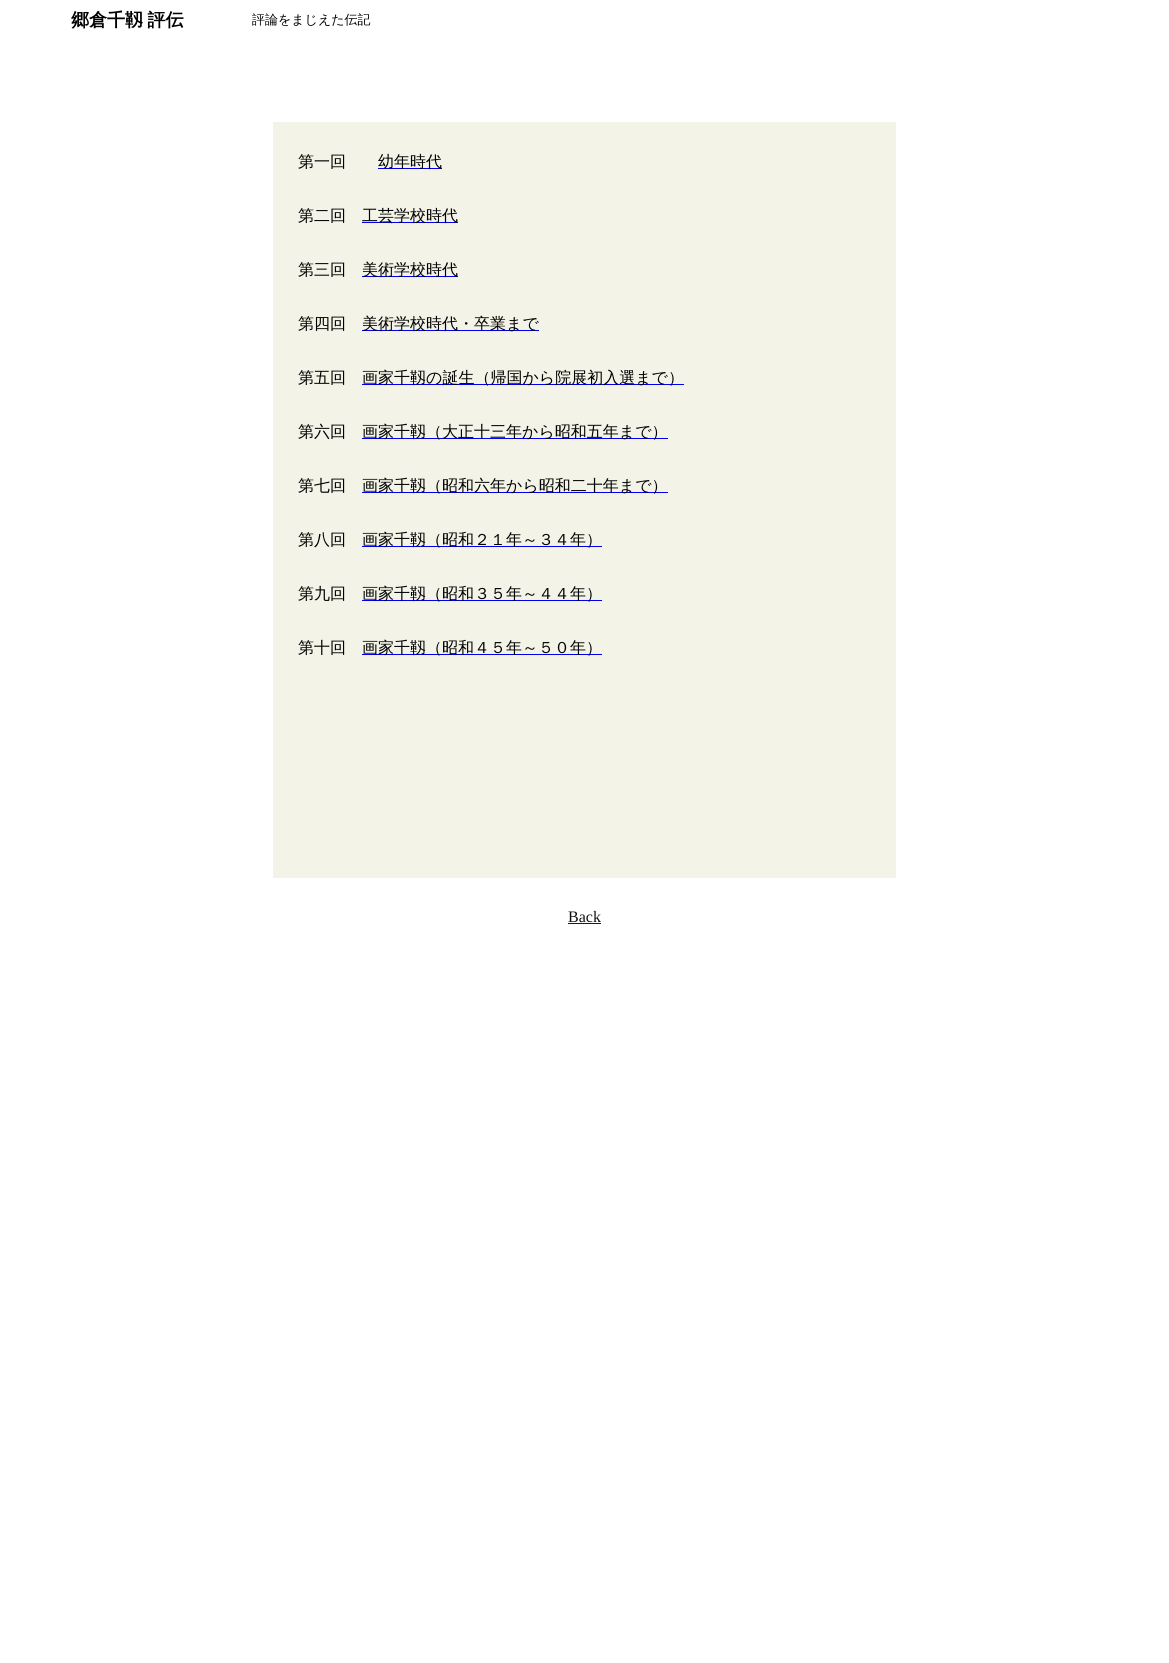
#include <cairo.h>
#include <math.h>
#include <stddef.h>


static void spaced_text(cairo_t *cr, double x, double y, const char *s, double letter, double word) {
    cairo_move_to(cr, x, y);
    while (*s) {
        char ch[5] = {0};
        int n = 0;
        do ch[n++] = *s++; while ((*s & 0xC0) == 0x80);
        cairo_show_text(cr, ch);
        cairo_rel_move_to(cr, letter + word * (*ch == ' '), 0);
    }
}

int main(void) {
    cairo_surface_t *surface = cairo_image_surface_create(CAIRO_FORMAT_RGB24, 1169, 1663);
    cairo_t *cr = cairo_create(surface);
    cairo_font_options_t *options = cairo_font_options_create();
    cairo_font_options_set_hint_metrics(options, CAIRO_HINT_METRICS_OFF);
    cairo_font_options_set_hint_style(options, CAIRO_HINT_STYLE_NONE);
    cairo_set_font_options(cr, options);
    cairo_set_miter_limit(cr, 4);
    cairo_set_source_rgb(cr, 1, 1, 1);
    cairo_paint(cr);
    cairo_select_font_face(cr, "WenQuanYi Zen Hei", CAIRO_FONT_SLANT_NORMAL, CAIRO_FONT_WEIGHT_BOLD);
    cairo_set_font_size(cr, 18);
    cairo_set_source_rgb(cr, 0, 0, 0);
    spaced_text(cr, 71, 26, "郷倉千靱 評伝", 0, -1);
    cairo_select_font_face(cr, "WenQuanYi Zen Hei Medium", CAIRO_FONT_SLANT_NORMAL, CAIRO_FONT_WEIGHT_NORMAL);
    cairo_set_font_size(cr, 13);
    cairo_move_to(cr, 252, 24);
    cairo_show_text(cr, "評論をまじえた伝記");
    cairo_set_source_rgb(cr, 0.953, 0.953, 0.906);
    cairo_rectangle(cr, 273, 122, 623, 27);
    cairo_fill(cr);
    cairo_rectangle(cr, 273, 149, 623, 27);
    cairo_fill(cr);
    cairo_set_font_size(cr, 16);
    cairo_set_source_rgb(cr, 0, 0, 0);
    cairo_move_to(cr, 298, 167);
    cairo_show_text(cr, "第一回");
    cairo_set_source_rgb(cr, 0, 0, 0.933);
    cairo_rectangle(cr, 378, 168, 64, 1);
    cairo_fill(cr);
    cairo_set_source_rgb(cr, 0, 0, 0);
    cairo_move_to(cr, 378, 167);
    cairo_show_text(cr, "幼年時代");
    cairo_set_source_rgb(cr, 0.953, 0.953, 0.906);
    cairo_rectangle(cr, 273, 176, 623, 27);
    cairo_fill(cr);
    cairo_rectangle(cr, 273, 203, 623, 27);
    cairo_fill(cr);
    cairo_set_source_rgb(cr, 0, 0, 0);
    cairo_move_to(cr, 298, 221);
    cairo_show_text(cr, "第二回");
    cairo_set_source_rgb(cr, 0, 0, 0.933);
    cairo_rectangle(cr, 362, 222, 96, 1);
    cairo_fill(cr);
    cairo_set_source_rgb(cr, 0, 0, 0);
    cairo_move_to(cr, 362, 221);
    cairo_show_text(cr, "工芸学校時代");
    cairo_set_source_rgb(cr, 0.953, 0.953, 0.906);
    cairo_rectangle(cr, 273, 230, 623, 27);
    cairo_fill(cr);
    cairo_rectangle(cr, 273, 257, 623, 27);
    cairo_fill(cr);
    cairo_set_source_rgb(cr, 0, 0, 0);
    cairo_move_to(cr, 298, 275);
    cairo_show_text(cr, "第三回");
    cairo_set_source_rgb(cr, 0, 0, 0.933);
    cairo_rectangle(cr, 362, 276, 96, 1);
    cairo_fill(cr);
    cairo_set_source_rgb(cr, 0, 0, 0);
    cairo_move_to(cr, 362, 275);
    cairo_show_text(cr, "美術学校時代");
    cairo_set_source_rgb(cr, 0.953, 0.953, 0.906);
    cairo_rectangle(cr, 273, 284, 623, 27);
    cairo_fill(cr);
    cairo_rectangle(cr, 273, 311, 623, 27);
    cairo_fill(cr);
    cairo_set_source_rgb(cr, 0, 0, 0);
    cairo_move_to(cr, 298, 329);
    cairo_show_text(cr, "第四回");
    cairo_set_source_rgb(cr, 0, 0, 0.933);
    cairo_rectangle(cr, 362, 330, 177, 1);
    cairo_fill(cr);
    cairo_set_source_rgb(cr, 0, 0, 0);
    cairo_move_to(cr, 362, 329);
    cairo_show_text(cr, "美術学校時代・卒業まで");
    cairo_set_source_rgb(cr, 0.953, 0.953, 0.906);
    cairo_rectangle(cr, 273, 338, 623, 27);
    cairo_fill(cr);
    cairo_rectangle(cr, 273, 365, 623, 27);
    cairo_fill(cr);
    cairo_set_source_rgb(cr, 0, 0, 0);
    cairo_move_to(cr, 298, 383);
    cairo_show_text(cr, "第五回");
    cairo_set_source_rgb(cr, 0, 0, 0.933);
    cairo_rectangle(cr, 362, 384, 322, 1);
    cairo_fill(cr);
    cairo_set_source_rgb(cr, 0, 0, 0);
    cairo_move_to(cr, 362, 383);
    cairo_show_text(cr, "画家千靱の誕生（帰国から院展初入選まで）");
    cairo_set_source_rgb(cr, 0.953, 0.953, 0.906);
    cairo_rectangle(cr, 273, 392, 623, 27);
    cairo_fill(cr);
    cairo_rectangle(cr, 273, 419, 623, 27);
    cairo_fill(cr);
    cairo_set_source_rgb(cr, 0, 0, 0);
    cairo_move_to(cr, 298, 437);
    cairo_show_text(cr, "第六回");
    cairo_set_source_rgb(cr, 0, 0, 0.933);
    cairo_rectangle(cr, 362, 438, 306, 1);
    cairo_fill(cr);
    cairo_set_source_rgb(cr, 0, 0, 0);
    cairo_move_to(cr, 362, 437);
    cairo_show_text(cr, "画家千靱（大正十三年から昭和五年まで）");
    cairo_set_source_rgb(cr, 0.953, 0.953, 0.906);
    cairo_rectangle(cr, 273, 446, 623, 27);
    cairo_fill(cr);
    cairo_rectangle(cr, 273, 473, 623, 27);
    cairo_fill(cr);
    cairo_set_source_rgb(cr, 0, 0, 0);
    cairo_move_to(cr, 298, 491);
    cairo_show_text(cr, "第七回");
    cairo_set_source_rgb(cr, 0, 0, 0.933);
    cairo_rectangle(cr, 362, 492, 306, 1);
    cairo_fill(cr);
    cairo_set_source_rgb(cr, 0, 0, 0);
    cairo_move_to(cr, 362, 491);
    cairo_show_text(cr, "画家千靱（昭和六年から昭和二十年まで）");
    cairo_set_source_rgb(cr, 0.953, 0.953, 0.906);
    cairo_rectangle(cr, 273, 500, 623, 27);
    cairo_fill(cr);
    cairo_rectangle(cr, 273, 527, 623, 27);
    cairo_fill(cr);
    cairo_set_source_rgb(cr, 0, 0, 0);
    cairo_move_to(cr, 298, 545);
    cairo_show_text(cr, "第八回");
    cairo_set_source_rgb(cr, 0, 0, 0.933);
    cairo_rectangle(cr, 362, 546, 240, 1);
    cairo_fill(cr);
    cairo_set_source_rgb(cr, 0, 0, 0);
    cairo_move_to(cr, 362, 545);
    cairo_show_text(cr, "画家千靱（昭和２１年～３４年）");
    cairo_set_source_rgb(cr, 0.953, 0.953, 0.906);
    cairo_rectangle(cr, 273, 554, 623, 27);
    cairo_fill(cr);
    cairo_rectangle(cr, 273, 581, 623, 27);
    cairo_fill(cr);
    cairo_set_source_rgb(cr, 0, 0, 0);
    cairo_move_to(cr, 298, 599);
    cairo_show_text(cr, "第九回");
    cairo_set_source_rgb(cr, 0, 0, 0.933);
    cairo_rectangle(cr, 362, 600, 240, 1);
    cairo_fill(cr);
    cairo_set_source_rgb(cr, 0, 0, 0);
    cairo_move_to(cr, 362, 599);
    cairo_show_text(cr, "画家千靱（昭和３５年～４４年）");
    cairo_set_source_rgb(cr, 0.953, 0.953, 0.906);
    cairo_rectangle(cr, 273, 608, 623, 27);
    cairo_fill(cr);
    cairo_rectangle(cr, 273, 635, 623, 27);
    cairo_fill(cr);
    cairo_set_source_rgb(cr, 0, 0, 0);
    cairo_move_to(cr, 298, 653);
    cairo_show_text(cr, "第十回");
    cairo_set_source_rgb(cr, 0, 0, 0.933);
    cairo_rectangle(cr, 362, 654, 240, 1);
    cairo_fill(cr);
    cairo_set_source_rgb(cr, 0, 0, 0);
    cairo_move_to(cr, 362, 653);
    cairo_show_text(cr, "画家千靱（昭和４５年～５０年）");
    cairo_set_source_rgb(cr, 0.953, 0.953, 0.906);
    cairo_rectangle(cr, 273, 662, 623, 27);
    cairo_fill(cr);
    cairo_rectangle(cr, 273, 689, 623, 27);
    cairo_fill(cr);
    cairo_rectangle(cr, 273, 716, 623, 27);
    cairo_fill(cr);
    cairo_rectangle(cr, 273, 743, 623, 27);
    cairo_fill(cr);
    cairo_rectangle(cr, 273, 770, 623, 27);
    cairo_fill(cr);
    cairo_rectangle(cr, 273, 797, 623, 27);
    cairo_fill(cr);
    cairo_rectangle(cr, 273, 824, 623, 27);
    cairo_fill(cr);
    cairo_rectangle(cr, 273, 851, 623, 27);
    cairo_fill(cr);
    cairo_select_font_face(cr, "Liberation Serif", CAIRO_FONT_SLANT_NORMAL, CAIRO_FONT_WEIGHT_NORMAL);
    cairo_set_source_rgb(cr, 0.067, 0.067, 0.067);
    cairo_move_to(cr, 568, 922);
    cairo_show_text(cr, "Back");
    cairo_set_source_rgb(cr, 0, 0, 0.933);
    cairo_rectangle(cr, 568, 923, 33, 1);
    cairo_fill(cr);
    cairo_surface_write_to_png(surface, "page.png");
    cairo_font_options_destroy(options);
    cairo_destroy(cr);
    cairo_surface_destroy(surface);
    return 0;
}
